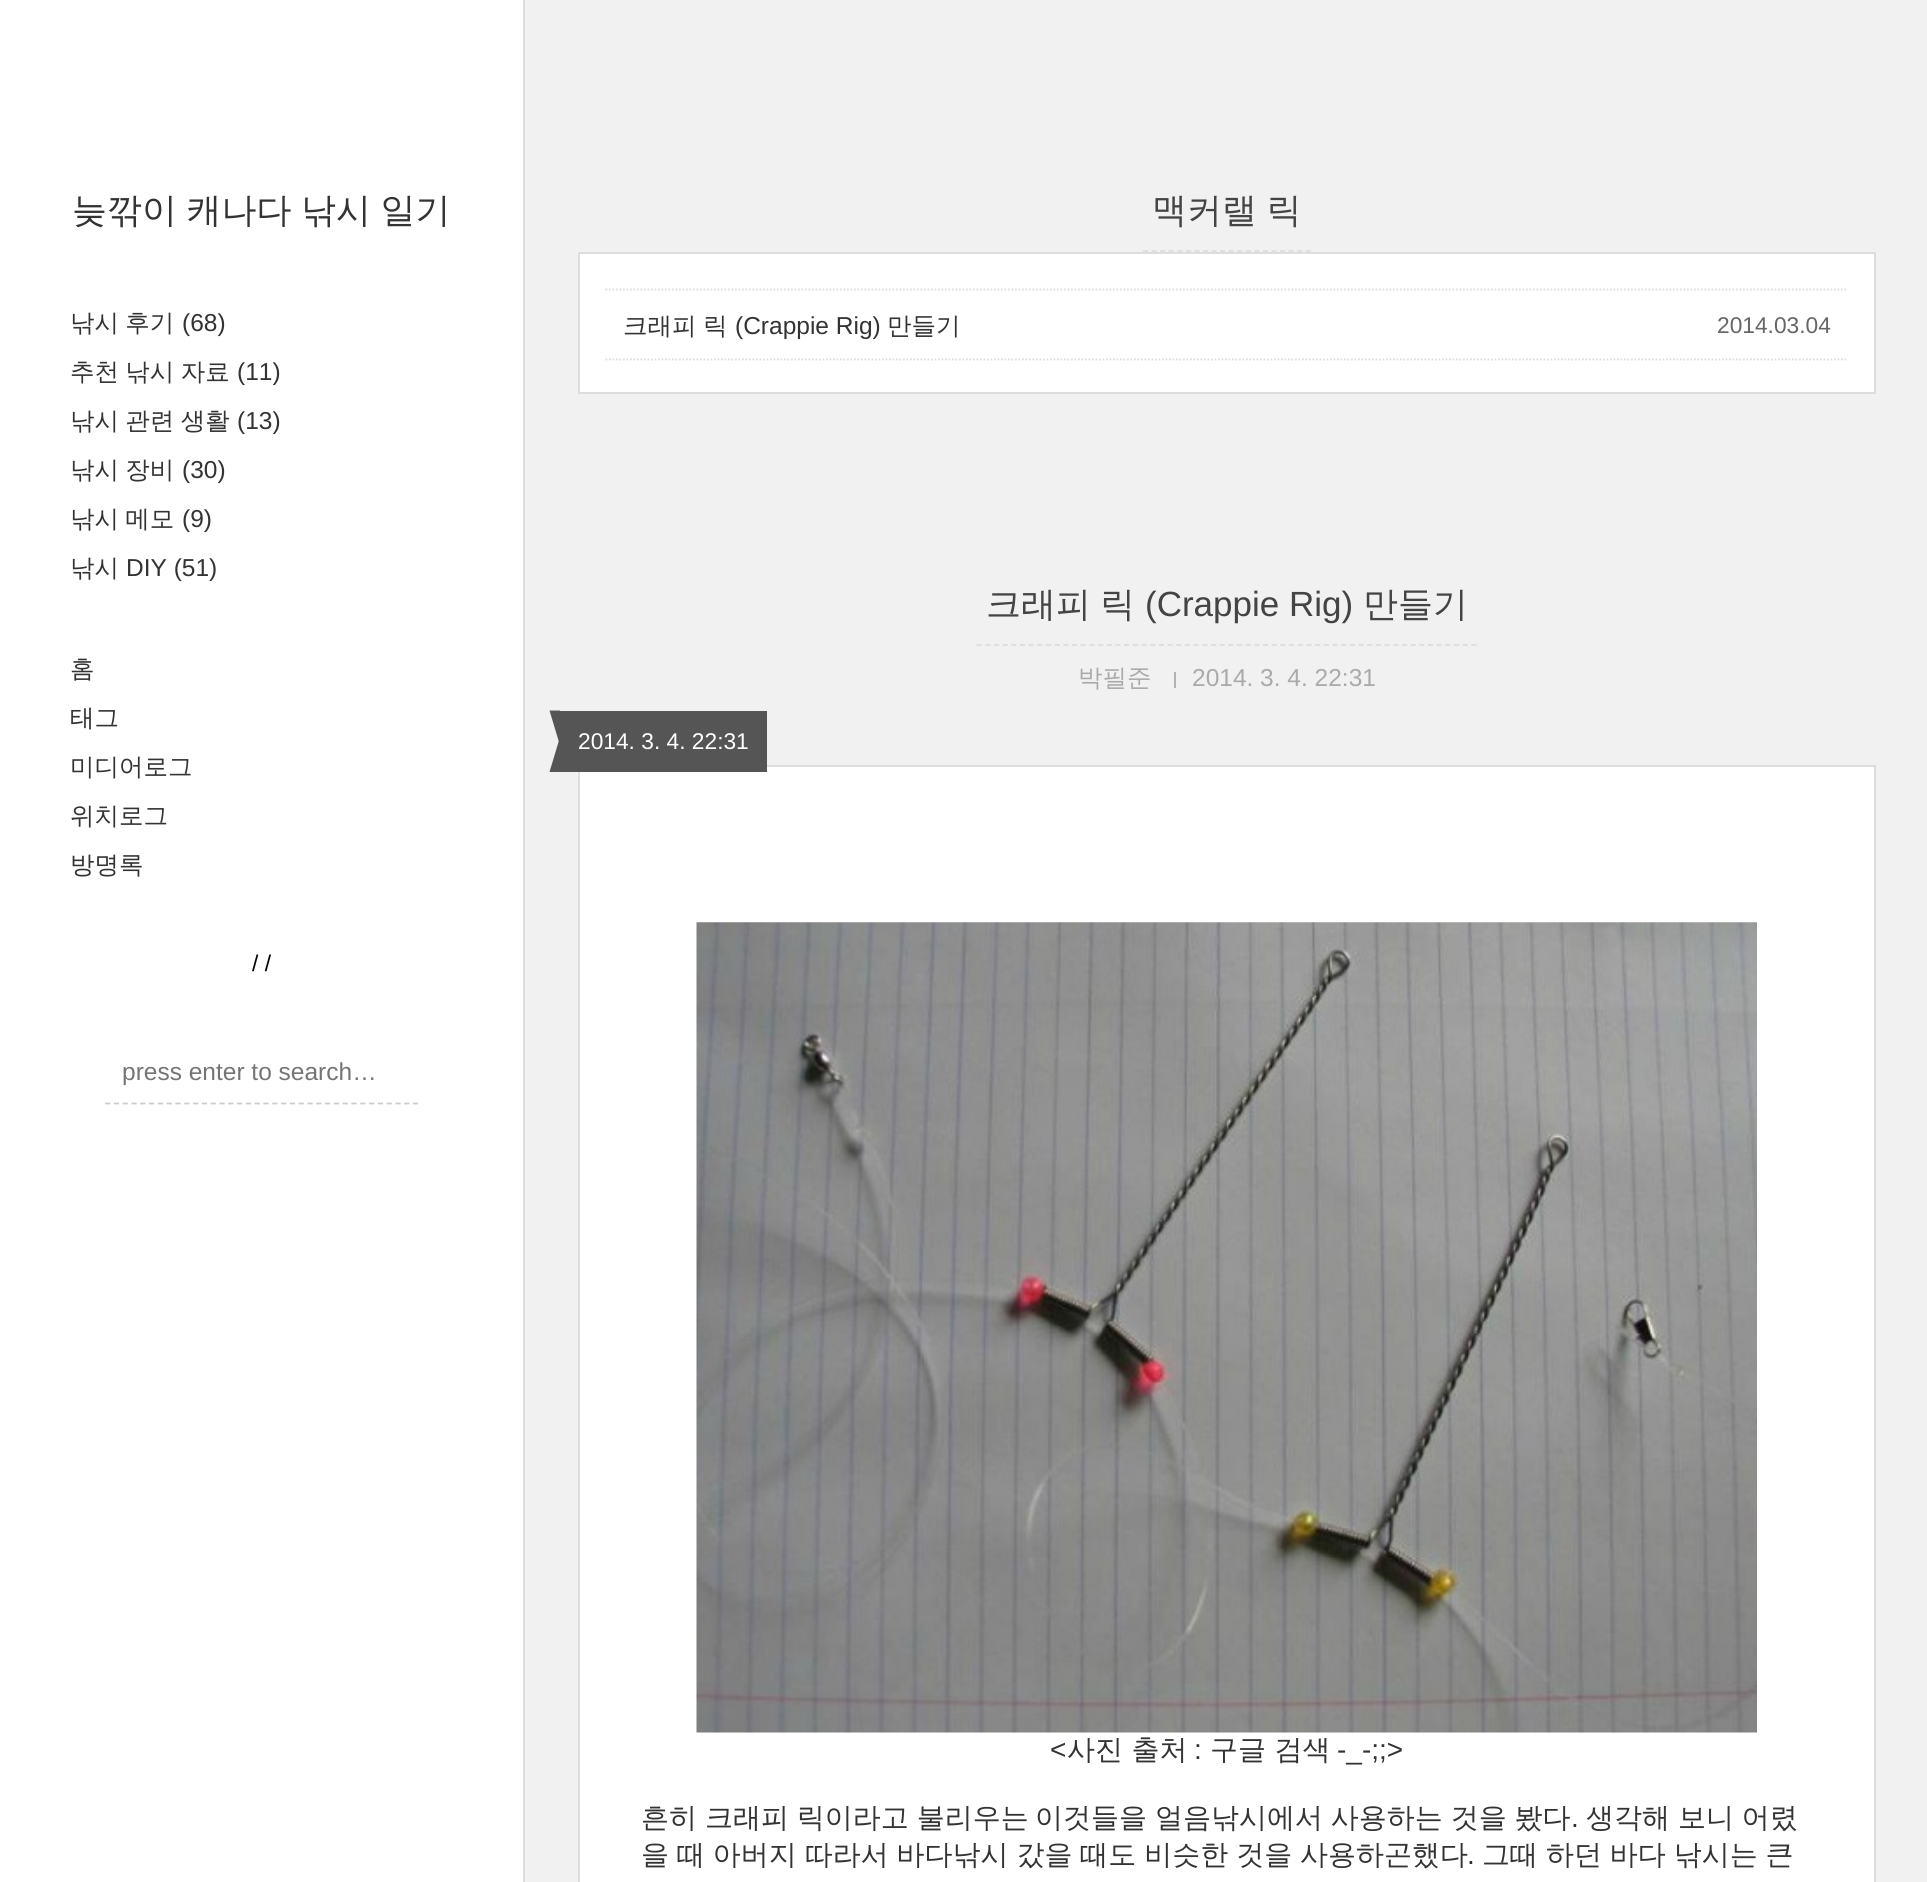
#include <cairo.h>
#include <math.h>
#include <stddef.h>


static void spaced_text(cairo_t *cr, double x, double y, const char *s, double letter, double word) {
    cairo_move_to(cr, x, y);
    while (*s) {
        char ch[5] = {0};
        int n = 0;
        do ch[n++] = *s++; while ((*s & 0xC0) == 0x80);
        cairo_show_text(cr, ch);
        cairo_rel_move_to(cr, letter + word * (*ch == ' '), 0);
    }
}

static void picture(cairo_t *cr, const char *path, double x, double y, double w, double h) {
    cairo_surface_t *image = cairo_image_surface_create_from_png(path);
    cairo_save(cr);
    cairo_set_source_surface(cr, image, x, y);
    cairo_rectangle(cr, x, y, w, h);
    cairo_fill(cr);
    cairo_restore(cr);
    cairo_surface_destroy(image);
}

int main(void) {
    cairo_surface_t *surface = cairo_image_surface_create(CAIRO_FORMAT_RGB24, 1927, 1882);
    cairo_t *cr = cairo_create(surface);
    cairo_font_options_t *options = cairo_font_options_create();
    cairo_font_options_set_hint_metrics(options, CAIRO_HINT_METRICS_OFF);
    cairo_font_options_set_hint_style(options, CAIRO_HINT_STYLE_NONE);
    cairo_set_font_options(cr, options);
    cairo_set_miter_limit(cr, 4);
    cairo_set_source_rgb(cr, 0.945, 0.945, 0.945);
    cairo_paint(cr);
    cairo_set_source_rgb(cr, 1, 1, 1);
    cairo_rectangle(cr, 0, 0, 523, 1882);
    cairo_fill(cr);
    cairo_set_source_rgb(cr, 0.867, 0.867, 0.867);
    cairo_rectangle(cr, 523, 0, 2, 1882);
    cairo_fill(cr);
    cairo_select_font_face(cr, "WenQuanYi Zen Hei Medium", CAIRO_FONT_SLANT_NORMAL, CAIRO_FONT_WEIGHT_NORMAL);
    cairo_set_font_size(cr, 35);
    cairo_set_source_rgb(cr, 0.2, 0.2, 0.2);
    spaced_text(cr, 72, 222, "늦깎이 캐나다 낚시 일기", 0, -1);
    cairo_set_font_size(cr, 24.5);
    spaced_text(cr, 70, 331, "낚시 후기", 0, -1);
    cairo_select_font_face(cr, "Liberation Sans", CAIRO_FONT_SLANT_NORMAL, CAIRO_FONT_WEIGHT_NORMAL);
    cairo_move_to(cr, 182, 331);
    cairo_show_text(cr, "(68)");
    cairo_select_font_face(cr, "WenQuanYi Zen Hei Medium", CAIRO_FONT_SLANT_NORMAL, CAIRO_FONT_WEIGHT_NORMAL);
    spaced_text(cr, 70, 380, "추천 낚시 자료", 0, -1);
    cairo_select_font_face(cr, "Liberation Sans", CAIRO_FONT_SLANT_NORMAL, CAIRO_FONT_WEIGHT_NORMAL);
    cairo_move_to(cr, 237, 380);
    cairo_show_text(cr, "(11)");
    cairo_select_font_face(cr, "WenQuanYi Zen Hei Medium", CAIRO_FONT_SLANT_NORMAL, CAIRO_FONT_WEIGHT_NORMAL);
    spaced_text(cr, 70, 429, "낚시 관련 생활", 0, -1);
    cairo_select_font_face(cr, "Liberation Sans", CAIRO_FONT_SLANT_NORMAL, CAIRO_FONT_WEIGHT_NORMAL);
    cairo_move_to(cr, 237, 429);
    cairo_show_text(cr, "(13)");
    cairo_select_font_face(cr, "WenQuanYi Zen Hei Medium", CAIRO_FONT_SLANT_NORMAL, CAIRO_FONT_WEIGHT_NORMAL);
    spaced_text(cr, 70, 478, "낚시 장비", 0, -1);
    cairo_select_font_face(cr, "Liberation Sans", CAIRO_FONT_SLANT_NORMAL, CAIRO_FONT_WEIGHT_NORMAL);
    cairo_move_to(cr, 182, 478);
    cairo_show_text(cr, "(30)");
    cairo_select_font_face(cr, "WenQuanYi Zen Hei Medium", CAIRO_FONT_SLANT_NORMAL, CAIRO_FONT_WEIGHT_NORMAL);
    spaced_text(cr, 70, 527, "낚시 메모", 0, -1);
    cairo_select_font_face(cr, "Liberation Sans", CAIRO_FONT_SLANT_NORMAL, CAIRO_FONT_WEIGHT_NORMAL);
    cairo_move_to(cr, 182, 527);
    cairo_show_text(cr, "(9)");
    cairo_select_font_face(cr, "WenQuanYi Zen Hei Medium", CAIRO_FONT_SLANT_NORMAL, CAIRO_FONT_WEIGHT_NORMAL);
    cairo_move_to(cr, 70, 576);
    cairo_show_text(cr, "낚시");
    cairo_select_font_face(cr, "Liberation Sans", CAIRO_FONT_SLANT_NORMAL, CAIRO_FONT_WEIGHT_NORMAL);
    cairo_move_to(cr, 126, 576);
    cairo_show_text(cr, "DIY (51)");
    cairo_select_font_face(cr, "WenQuanYi Zen Hei Medium", CAIRO_FONT_SLANT_NORMAL, CAIRO_FONT_WEIGHT_NORMAL);
    cairo_move_to(cr, 70, 677);
    cairo_show_text(cr, "홈");
    cairo_move_to(cr, 70, 726);
    cairo_show_text(cr, "태그");
    cairo_move_to(cr, 70, 775);
    cairo_show_text(cr, "미디어로그");
    cairo_move_to(cr, 70, 824);
    cairo_show_text(cr, "위치로그");
    cairo_move_to(cr, 70, 873);
    cairo_show_text(cr, "방명록");
    cairo_select_font_face(cr, "Liberation Sans", CAIRO_FONT_SLANT_NORMAL, CAIRO_FONT_WEIGHT_NORMAL);
    cairo_set_font_size(cr, 22.75);
    cairo_set_source_rgb(cr, 0, 0, 0);
    cairo_move_to(cr, 252, 971);
    cairo_show_text(cr, "/ /");
    cairo_new_path(cr);
    cairo_move_to(cr, 105, 1103.5);
    cairo_line_to(cr, 418, 1103.5);
    cairo_set_source_rgb(cr, 0.8, 0.8, 0.8);
    cairo_set_line_width(cr, 1.8);
    cairo_set_dash(cr, (double[]){5.25, 3.55}, 2, 0);
    cairo_stroke(cr);
    cairo_set_font_size(cr, 24.5);
    cairo_set_source_rgb(cr, 0.459, 0.459, 0.459);
    cairo_move_to(cr, 122, 1080);
    cairo_show_text(cr, "press enter to search…");
    cairo_new_path(cr);
    cairo_move_to(cr, 1143, 251);
    cairo_line_to(cr, 1311, 251);
    cairo_set_source_rgb(cr, 0.867, 0.867, 0.867);
    cairo_set_dash(cr, (double[]){5.25, 3.31}, 2, 0);
    cairo_stroke(cr);
    cairo_select_font_face(cr, "WenQuanYi Zen Hei Medium", CAIRO_FONT_SLANT_NORMAL, CAIRO_FONT_WEIGHT_NORMAL);
    cairo_set_font_size(cr, 35);
    cairo_set_source_rgb(cr, 0.267, 0.267, 0.267);
    spaced_text(cr, 1152, 222, "맥커랠 릭", 0, -1);
    cairo_set_source_rgb(cr, 1, 1, 1);
    cairo_rectangle(cr, 579, 253, 1296, 140);
    cairo_fill_preserve(cr);
    cairo_set_source_rgb(cr, 0.867, 0.867, 0.867);
    cairo_set_line_width(cr, 2);
    cairo_set_dash(cr, NULL, 0, 0);
    cairo_stroke(cr);
    cairo_new_path(cr);
    cairo_move_to(cr, 605.5, 289.5);
    cairo_line_to(cr, 1848, 289.5);
    cairo_set_line_width(cr, 1.8);
    cairo_set_dash(cr, (double[]){1.75, 1.75}, 2, 0);
    cairo_stroke(cr);
    cairo_new_path(cr);
    cairo_move_to(cr, 605.5, 359.5);
    cairo_line_to(cr, 1848, 359.5);
    cairo_stroke(cr);
    cairo_set_font_size(cr, 24.5);
    cairo_set_source_rgb(cr, 0.2, 0.2, 0.2);
    cairo_move_to(cr, 623, 334);
    cairo_show_text(cr, "크래피");
    cairo_move_to(cr, 703, 334);
    cairo_show_text(cr, "릭");
    cairo_select_font_face(cr, "Liberation Sans", CAIRO_FONT_SLANT_NORMAL, CAIRO_FONT_WEIGHT_NORMAL);
    cairo_move_to(cr, 735, 334);
    cairo_show_text(cr, "(Crappie Rig)");
    cairo_select_font_face(cr, "WenQuanYi Zen Hei Medium", CAIRO_FONT_SLANT_NORMAL, CAIRO_FONT_WEIGHT_NORMAL);
    cairo_move_to(cr, 887, 334);
    cairo_show_text(cr, "만들기");
    cairo_select_font_face(cr, "Liberation Sans", CAIRO_FONT_SLANT_NORMAL, CAIRO_FONT_WEIGHT_NORMAL);
    cairo_set_font_size(cr, 22.75);
    cairo_set_source_rgb(cr, 0.4, 0.4, 0.4);
    cairo_move_to(cr, 1717, 333);
    cairo_show_text(cr, "2014.03.04");
    cairo_new_path(cr);
    cairo_move_to(cr, 976.5, 645);
    cairo_line_to(cr, 1477, 645);
    cairo_set_source_rgb(cr, 0.867, 0.867, 0.867);
    cairo_set_dash(cr, (double[]){5.25, 3.43}, 2, 0);
    cairo_stroke(cr);
    cairo_select_font_face(cr, "WenQuanYi Zen Hei Medium", CAIRO_FONT_SLANT_NORMAL, CAIRO_FONT_WEIGHT_NORMAL);
    cairo_set_font_size(cr, 35);
    cairo_set_source_rgb(cr, 0.267, 0.267, 0.267);
    cairo_move_to(cr, 986, 616);
    cairo_show_text(cr, "크래피");
    cairo_move_to(cr, 1100, 616);
    cairo_show_text(cr, "릭");
    cairo_select_font_face(cr, "Liberation Sans", CAIRO_FONT_SLANT_NORMAL, CAIRO_FONT_WEIGHT_NORMAL);
    cairo_move_to(cr, 1145, 616);
    cairo_show_text(cr, "(Crappie Rig)");
    cairo_select_font_face(cr, "WenQuanYi Zen Hei Medium", CAIRO_FONT_SLANT_NORMAL, CAIRO_FONT_WEIGHT_NORMAL);
    cairo_move_to(cr, 1363, 616);
    cairo_show_text(cr, "만들기");
    cairo_set_font_size(cr, 24.5);
    cairo_set_source_rgb(cr, 0.667, 0.667, 0.667);
    cairo_move_to(cr, 1078, 686);
    cairo_show_text(cr, "박필준");
    cairo_set_source_rgb(cr, 0.702, 0.702, 0.702);
    cairo_rectangle(cr, 1174, 672, 2, 16);
    cairo_fill(cr);
    cairo_select_font_face(cr, "Liberation Sans", CAIRO_FONT_SLANT_NORMAL, CAIRO_FONT_WEIGHT_NORMAL);
    cairo_set_source_rgb(cr, 0.667, 0.667, 0.667);
    cairo_move_to(cr, 1192, 686);
    cairo_show_text(cr, "2014. 3. 4. 22:31");
    cairo_set_source_rgb(cr, 1, 1, 1);
    cairo_rectangle(cr, 579, 766, 1296, 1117);
    cairo_fill_preserve(cr);
    cairo_set_source_rgb(cr, 0.867, 0.867, 0.867);
    cairo_set_line_width(cr, 2);
    cairo_set_dash(cr, NULL, 0, 0);
    cairo_stroke(cr);
    cairo_set_source_rgb(cr, 0.333, 0.333, 0.333);
    cairo_rectangle(cr, 560, 711, 207, 61);
    cairo_fill(cr);
    cairo_new_path(cr);
    cairo_move_to(cr, 549.5, 710.5);
    cairo_line_to(cr, 560, 710.5);
    cairo_line_to(cr, 560, 745.5);
    cairo_close_path(cr);
    cairo_fill(cr);
    cairo_set_font_size(cr, 22.75);
    cairo_set_source_rgb(cr, 1, 1, 1);
    cairo_move_to(cr, 578, 749);
    cairo_show_text(cr, "2014. 3. 4. 22:31");
    cairo_set_source_rgb(cr, 0.333, 0.333, 0.333);
    cairo_new_path(cr);
    cairo_move_to(cr, 560, 772);
    cairo_line_to(cr, 549.5, 772);
    cairo_line_to(cr, 560, 737);
    cairo_close_path(cr);
    cairo_fill(cr);
    picture(cr, "img1.png", 696, 922, 1061, 811);
    cairo_set_font_size(cr, 28);
    cairo_set_source_rgb(cr, 0.2, 0.2, 0.2);
    cairo_move_to(cr, 1050, 1759);
    cairo_show_text(cr, "<");
    cairo_select_font_face(cr, "WenQuanYi Zen Hei Medium", CAIRO_FONT_SLANT_NORMAL, CAIRO_FONT_WEIGHT_NORMAL);
    cairo_move_to(cr, 1067, 1759);
    cairo_show_text(cr, "사진 출처");
    cairo_select_font_face(cr, "Liberation Sans", CAIRO_FONT_SLANT_NORMAL, CAIRO_FONT_WEIGHT_NORMAL);
    cairo_move_to(cr, 1194, 1759);
    cairo_show_text(cr, ":");
    cairo_select_font_face(cr, "WenQuanYi Zen Hei Medium", CAIRO_FONT_SLANT_NORMAL, CAIRO_FONT_WEIGHT_NORMAL);
    cairo_move_to(cr, 1210, 1759);
    cairo_show_text(cr, "구글 검색");
    cairo_select_font_face(cr, "Liberation Sans", CAIRO_FONT_SLANT_NORMAL, CAIRO_FONT_WEIGHT_NORMAL);
    cairo_move_to(cr, 1337, 1759);
    cairo_show_text(cr, "-_-;;>");
    cairo_select_font_face(cr, "WenQuanYi Zen Hei Medium", CAIRO_FONT_SLANT_NORMAL, CAIRO_FONT_WEIGHT_NORMAL);
    spaced_text(cr, 641, 1827, "흔히 크래피 릭이라고 불리우는", 0, -0.5);
    spaced_text(cr, 1035, 1827, "이것들을 얼음낚시에서 사용하는 것을 봤다", 0, -0.5);
    cairo_select_font_face(cr, "Liberation Sans", CAIRO_FONT_SLANT_NORMAL, CAIRO_FONT_WEIGHT_NORMAL);
    cairo_move_to(cr, 1571, 1827);
    cairo_show_text(cr, ".");
    cairo_select_font_face(cr, "WenQuanYi Zen Hei Medium", CAIRO_FONT_SLANT_NORMAL, CAIRO_FONT_WEIGHT_NORMAL);
    spaced_text(cr, 1586, 1827, "생각해 보니 어렸", 0, -0.5);
    spaced_text(cr, 641, 1864, "을 때 아버지 따라서 바다낚시 갔을 때도 비슷한 것을 사용하곤했다", 0, -0.5);
    cairo_select_font_face(cr, "Liberation Sans", CAIRO_FONT_SLANT_NORMAL, CAIRO_FONT_WEIGHT_NORMAL);
    cairo_move_to(cr, 1467, 1864);
    cairo_show_text(cr, ".");
    cairo_select_font_face(cr, "WenQuanYi Zen Hei Medium", CAIRO_FONT_SLANT_NORMAL, CAIRO_FONT_WEIGHT_NORMAL);
    spaced_text(cr, 1482, 1864, "그때 하던 바다 낚시는 큰", 0, -0.5);
    cairo_surface_write_to_png(surface, "page.png");
    cairo_font_options_destroy(options);
    cairo_destroy(cr);
    cairo_surface_destroy(surface);
    return 0;
}
